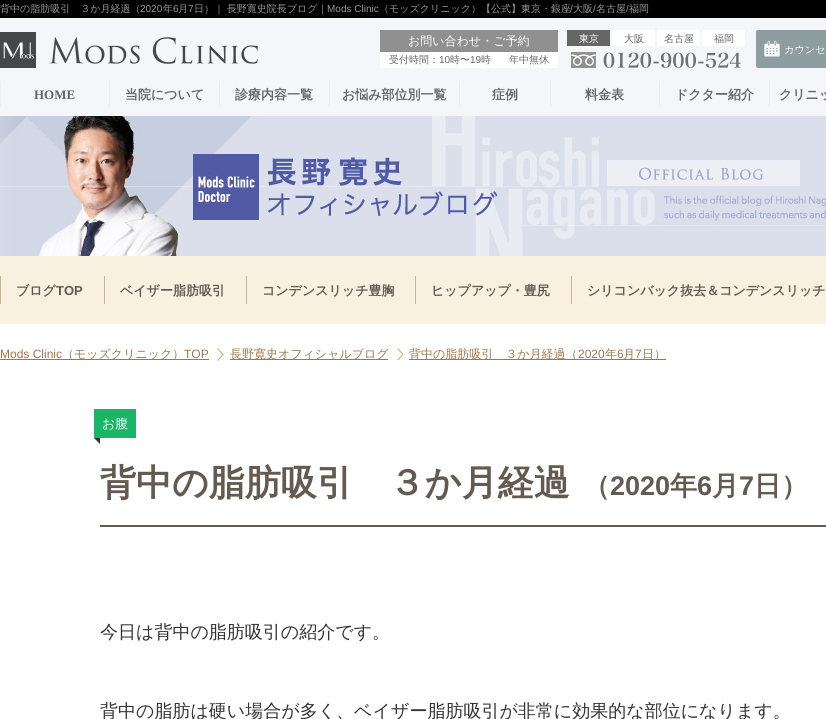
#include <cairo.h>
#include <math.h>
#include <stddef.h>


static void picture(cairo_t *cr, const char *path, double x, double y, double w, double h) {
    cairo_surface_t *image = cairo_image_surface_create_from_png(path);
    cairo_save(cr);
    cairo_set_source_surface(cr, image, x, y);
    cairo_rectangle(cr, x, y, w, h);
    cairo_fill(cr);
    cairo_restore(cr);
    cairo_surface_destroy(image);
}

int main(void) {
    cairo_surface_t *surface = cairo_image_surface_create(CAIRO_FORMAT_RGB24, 826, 719);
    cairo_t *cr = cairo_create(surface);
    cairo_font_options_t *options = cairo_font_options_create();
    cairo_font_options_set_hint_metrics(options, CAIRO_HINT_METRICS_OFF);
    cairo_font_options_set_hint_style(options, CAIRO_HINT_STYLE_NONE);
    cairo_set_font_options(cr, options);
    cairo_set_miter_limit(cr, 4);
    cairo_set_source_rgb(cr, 1, 1, 1);
    cairo_paint(cr);
    cairo_set_source_rgb(cr, 0, 0, 0);
    cairo_rectangle(cr, 0, 0, 826, 18);
    cairo_fill(cr);
    cairo_select_font_face(cr, "WenQuanYi Zen Hei Medium", CAIRO_FONT_SLANT_NORMAL, CAIRO_FONT_WEIGHT_NORMAL);
    cairo_set_font_size(cr, 10);
    cairo_set_source_rgb(cr, 0.6, 0.6, 0.6);
    cairo_move_to(cr, 0, 12);
    cairo_show_text(cr, "背中の脂肪吸引　３か月経過（");
    cairo_select_font_face(cr, "Liberation Sans", CAIRO_FONT_SLANT_NORMAL, CAIRO_FONT_WEIGHT_NORMAL);
    cairo_move_to(cr, 140, 12);
    cairo_show_text(cr, "2020");
    cairo_select_font_face(cr, "WenQuanYi Zen Hei Medium", CAIRO_FONT_SLANT_NORMAL, CAIRO_FONT_WEIGHT_NORMAL);
    cairo_move_to(cr, 163, 12);
    cairo_show_text(cr, "年");
    cairo_move_to(cr, 178, 12);
    cairo_show_text(cr, "月");
    cairo_move_to(cr, 194, 12);
    cairo_show_text(cr, "日）｜ 長野寛史院長ブログ｜");
    cairo_select_font_face(cr, "Liberation Sans", CAIRO_FONT_SLANT_NORMAL, CAIRO_FONT_WEIGHT_NORMAL);
    cairo_move_to(cr, 327, 12);
    cairo_show_text(cr, "Mods Clinic");
    cairo_select_font_face(cr, "WenQuanYi Zen Hei Medium", CAIRO_FONT_SLANT_NORMAL, CAIRO_FONT_WEIGHT_NORMAL);
    cairo_move_to(cr, 379, 12);
    cairo_show_text(cr, "（モッズクリニック）【公式】東京・銀座");
    cairo_select_font_face(cr, "Liberation Sans", CAIRO_FONT_SLANT_NORMAL, CAIRO_FONT_WEIGHT_NORMAL);
    cairo_move_to(cr, 570, 12);
    cairo_show_text(cr, "/");
    cairo_select_font_face(cr, "WenQuanYi Zen Hei Medium", CAIRO_FONT_SLANT_NORMAL, CAIRO_FONT_WEIGHT_NORMAL);
    cairo_move_to(cr, 573, 12);
    cairo_show_text(cr, "大阪 名古屋");
    cairo_select_font_face(cr, "Liberation Sans", CAIRO_FONT_SLANT_NORMAL, CAIRO_FONT_WEIGHT_NORMAL);
    cairo_move_to(cr, 626, 12);
    cairo_show_text(cr, "/");
    cairo_select_font_face(cr, "WenQuanYi Zen Hei Medium", CAIRO_FONT_SLANT_NORMAL, CAIRO_FONT_WEIGHT_NORMAL);
    cairo_move_to(cr, 629, 12);
    cairo_show_text(cr, "福岡");
    cairo_select_font_face(cr, "Liberation Sans", CAIRO_FONT_SLANT_NORMAL, CAIRO_FONT_WEIGHT_NORMAL);
    cairo_move_to(cr, 173, 12);
    cairo_show_text(cr, "6");
    cairo_move_to(cr, 188, 12);
    cairo_show_text(cr, "7");
    cairo_move_to(cr, 593, 12);
    cairo_show_text(cr, "/");
    cairo_set_source_rgb(cr, 0.957, 0.961, 0.976);
    cairo_rectangle(cr, 0, 18, 826, 98);
    cairo_fill(cr);
    picture(cr, "img1.png", 0, 32, 258, 36);
    cairo_set_source_rgb(cr, 1, 1, 1);
    cairo_rectangle(cr, 380, 52, 178, 16);
    cairo_fill(cr);
    cairo_set_source_rgb(cr, 0.565, 0.565, 0.565);
    cairo_rectangle(cr, 380, 30, 178, 22);
    cairo_fill(cr);
    cairo_select_font_face(cr, "WenQuanYi Zen Hei Medium", CAIRO_FONT_SLANT_NORMAL, CAIRO_FONT_WEIGHT_NORMAL);
    cairo_set_font_size(cr, 12);
    cairo_set_source_rgb(cr, 1, 1, 1);
    cairo_move_to(cr, 408, 45);
    cairo_show_text(cr, "お問い合わせ・ご予約");
    cairo_set_font_size(cr, 10);
    cairo_set_source_rgb(cr, 0.4, 0.4, 0.4);
    cairo_move_to(cr, 389, 63);
    cairo_show_text(cr, "受付時間：");
    cairo_select_font_face(cr, "Liberation Sans", CAIRO_FONT_SLANT_NORMAL, CAIRO_FONT_WEIGHT_NORMAL);
    cairo_move_to(cr, 439, 63);
    cairo_show_text(cr, "10");
    cairo_select_font_face(cr, "WenQuanYi Zen Hei Medium", CAIRO_FONT_SLANT_NORMAL, CAIRO_FONT_WEIGHT_NORMAL);
    cairo_move_to(cr, 450, 63);
    cairo_show_text(cr, "時〜");
    cairo_select_font_face(cr, "Liberation Sans", CAIRO_FONT_SLANT_NORMAL, CAIRO_FONT_WEIGHT_NORMAL);
    cairo_move_to(cr, 470, 63);
    cairo_show_text(cr, "19");
    cairo_select_font_face(cr, "WenQuanYi Zen Hei Medium", CAIRO_FONT_SLANT_NORMAL, CAIRO_FONT_WEIGHT_NORMAL);
    cairo_move_to(cr, 481, 63);
    cairo_show_text(cr, "時");
    cairo_move_to(cr, 509, 63);
    cairo_show_text(cr, "年中無休");
    cairo_rectangle(cr, 567, 30, 43, 16);
    cairo_fill(cr);
    cairo_set_source_rgb(cr, 1, 1, 1);
    cairo_move_to(cr, 579, 42);
    cairo_show_text(cr, "東京");
    cairo_rectangle(cr, 612, 30, 43, 16);
    cairo_fill(cr);
    cairo_set_source_rgb(cr, 0.4, 0.4, 0.4);
    cairo_move_to(cr, 624, 42);
    cairo_show_text(cr, "大阪");
    cairo_set_source_rgb(cr, 1, 1, 1);
    cairo_rectangle(cr, 657, 30, 43, 16);
    cairo_fill(cr);
    cairo_set_source_rgb(cr, 0.4, 0.4, 0.4);
    cairo_move_to(cr, 664, 42);
    cairo_show_text(cr, "名古屋");
    cairo_set_source_rgb(cr, 1, 1, 1);
    cairo_rectangle(cr, 702, 30, 43, 16);
    cairo_fill(cr);
    cairo_set_source_rgb(cr, 0.4, 0.4, 0.4);
    cairo_move_to(cr, 714, 42);
    cairo_show_text(cr, "福岡");
    picture(cr, "img2.png", 571, 52, 170, 16);
    picture(cr, "img3.png", 756, 30, 70, 38);
    cairo_set_source_rgb(cr, 0.933, 0.933, 0.933);
    cairo_rectangle(cr, 109, 81, 1, 26);
    cairo_fill(cr);
    cairo_rectangle(cr, 0, 81, 1, 26);
    cairo_fill(cr);
    cairo_select_font_face(cr, "Liberation Serif", CAIRO_FONT_SLANT_NORMAL, CAIRO_FONT_WEIGHT_BOLD);
    cairo_set_font_size(cr, 13);
    cairo_set_source_rgb(cr, 0.4, 0.4, 0.4);
    cairo_move_to(cr, 34, 99);
    cairo_show_text(cr, "HOME");
    cairo_set_source_rgb(cr, 0.933, 0.933, 0.933);
    cairo_rectangle(cr, 219, 81, 1, 26);
    cairo_fill(cr);
    cairo_select_font_face(cr, "WenQuanYi Zen Hei", CAIRO_FONT_SLANT_NORMAL, CAIRO_FONT_WEIGHT_BOLD);
    cairo_set_source_rgb(cr, 0.4, 0.4, 0.4);
    cairo_move_to(cr, 125, 99);
    cairo_show_text(cr, "当院について");
    cairo_set_source_rgb(cr, 0.933, 0.933, 0.933);
    cairo_rectangle(cr, 329, 81, 1, 26);
    cairo_fill(cr);
    cairo_set_source_rgb(cr, 0.4, 0.4, 0.4);
    cairo_move_to(cr, 235, 99);
    cairo_show_text(cr, "診療内容一覧");
    cairo_set_source_rgb(cr, 0.933, 0.933, 0.933);
    cairo_rectangle(cr, 459, 81, 1, 26);
    cairo_fill(cr);
    cairo_set_source_rgb(cr, 0.4, 0.4, 0.4);
    cairo_move_to(cr, 342, 99);
    cairo_show_text(cr, "お悩み部位別一覧");
    cairo_set_source_rgb(cr, 0.933, 0.933, 0.933);
    cairo_rectangle(cr, 550, 81, 1, 26);
    cairo_fill(cr);
    cairo_set_source_rgb(cr, 0.4, 0.4, 0.4);
    cairo_move_to(cr, 492, 99);
    cairo_show_text(cr, "症例");
    cairo_set_source_rgb(cr, 0.933, 0.933, 0.933);
    cairo_rectangle(cr, 659, 81, 1, 26);
    cairo_fill(cr);
    cairo_set_source_rgb(cr, 0.4, 0.4, 0.4);
    cairo_move_to(cr, 585, 99);
    cairo_show_text(cr, "料金表");
    cairo_set_source_rgb(cr, 0.933, 0.933, 0.933);
    cairo_rectangle(cr, 769, 81, 1, 26);
    cairo_fill(cr);
    cairo_set_source_rgb(cr, 0.4, 0.4, 0.4);
    cairo_move_to(cr, 675, 99);
    cairo_show_text(cr, "ドクター紹介");
    cairo_move_to(cr, 779, 99);
    cairo_show_text(cr, "クリニッ");
    picture(cr, "img4.png", 0, 116, 826, 140);
    picture(cr, "img5.png", 193, 154, 305, 66);
    cairo_set_source_rgb(cr, 0.973, 0.941, 0.878);
    cairo_rectangle(cr, 0, 256, 826, 68);
    cairo_fill(cr);
    cairo_set_source_rgb(cr, 0.788, 0.706, 0.6);
    cairo_rectangle(cr, 0, 276, 1, 28);
    cairo_fill(cr);
    cairo_set_source_rgb(cr, 0.388, 0.353, 0.318);
    cairo_move_to(cr, 16, 295);
    cairo_show_text(cr, "ブログ");
    cairo_select_font_face(cr, "Liberation Sans", CAIRO_FONT_SLANT_NORMAL, CAIRO_FONT_WEIGHT_BOLD);
    cairo_move_to(cr, 56, 295);
    cairo_show_text(cr, "TOP");
    cairo_set_source_rgb(cr, 0.788, 0.706, 0.6);
    cairo_rectangle(cr, 104, 276, 1, 28);
    cairo_fill(cr);
    cairo_select_font_face(cr, "WenQuanYi Zen Hei", CAIRO_FONT_SLANT_NORMAL, CAIRO_FONT_WEIGHT_BOLD);
    cairo_set_source_rgb(cr, 0.388, 0.353, 0.318);
    cairo_move_to(cr, 120, 295);
    cairo_show_text(cr, "ベイザー脂肪吸引");
    cairo_set_source_rgb(cr, 0.788, 0.706, 0.6);
    cairo_rectangle(cr, 246, 276, 1, 28);
    cairo_fill(cr);
    cairo_set_source_rgb(cr, 0.388, 0.353, 0.318);
    cairo_move_to(cr, 262, 295);
    cairo_show_text(cr, "コンデンスリッチ豊胸");
    cairo_set_source_rgb(cr, 0.788, 0.706, 0.6);
    cairo_rectangle(cr, 415, 276, 1, 28);
    cairo_fill(cr);
    cairo_set_source_rgb(cr, 0.388, 0.353, 0.318);
    cairo_move_to(cr, 431, 295);
    cairo_show_text(cr, "ヒップアップ・豊尻");
    cairo_set_source_rgb(cr, 0.788, 0.706, 0.6);
    cairo_rectangle(cr, 571, 276, 1, 28);
    cairo_fill(cr);
    cairo_set_source_rgb(cr, 0.388, 0.353, 0.318);
    cairo_move_to(cr, 587, 295);
    cairo_show_text(cr, "シリコンバック抜去＆コンデンスリッチ");
    cairo_select_font_face(cr, "Liberation Sans", CAIRO_FONT_SLANT_NORMAL, CAIRO_FONT_WEIGHT_NORMAL);
    cairo_set_font_size(cr, 12);
    cairo_set_source_rgb(cr, 0.624, 0.467, 0.294);
    cairo_move_to(cr, 0, 358);
    cairo_show_text(cr, "Mods Clinic");
    cairo_rectangle(cr, 0, 359, 209, 1);
    cairo_fill(cr);
    cairo_select_font_face(cr, "WenQuanYi Zen Hei Medium", CAIRO_FONT_SLANT_NORMAL, CAIRO_FONT_WEIGHT_NORMAL);
    cairo_move_to(cr, 62, 358);
    cairo_show_text(cr, "（モッズクリニック）");
    cairo_select_font_face(cr, "Liberation Sans", CAIRO_FONT_SLANT_NORMAL, CAIRO_FONT_WEIGHT_NORMAL);
    cairo_move_to(cr, 184, 358);
    cairo_show_text(cr, "TOP");
    cairo_new_path(cr);
    cairo_move_to(cr, 217.5, 360.5);
    cairo_line_to(cr, 223, 354.5);
    cairo_line_to(cr, 217.5, 348.5);
    cairo_set_source_rgb(cr, 0.78, 0.698, 0.486);
    cairo_set_line_width(cr, 1.1);
    cairo_stroke(cr);
    cairo_set_source_rgb(cr, 0.624, 0.467, 0.294);
    cairo_rectangle(cr, 230, 359, 158, 1);
    cairo_fill(cr);
    cairo_select_font_face(cr, "WenQuanYi Zen Hei Medium", CAIRO_FONT_SLANT_NORMAL, CAIRO_FONT_WEIGHT_NORMAL);
    cairo_move_to(cr, 230, 358);
    cairo_show_text(cr, "長野寛史オフィシャルブログ");
    cairo_save(cr);
    cairo_rectangle(cr, 397, 348, 6, 12);
    cairo_clip(cr);
    cairo_new_path(cr);
    cairo_move_to(cr, 397.5, 360.5);
    cairo_line_to(cr, 403, 354.5);
    cairo_line_to(cr, 397.5, 348.5);
    cairo_set_source_rgb(cr, 0.78, 0.698, 0.486);
    cairo_stroke(cr);
    cairo_restore(cr);
    cairo_rectangle(cr, 409, 359, 257, 1);
    cairo_fill(cr);
    cairo_move_to(cr, 409, 358);
    cairo_show_text(cr, "背中の脂肪吸引　３か月経過（");
    cairo_select_font_face(cr, "Liberation Sans", CAIRO_FONT_SLANT_NORMAL, CAIRO_FONT_WEIGHT_NORMAL);
    cairo_move_to(cr, 578, 358);
    cairo_show_text(cr, "2020");
    cairo_select_font_face(cr, "WenQuanYi Zen Hei Medium", CAIRO_FONT_SLANT_NORMAL, CAIRO_FONT_WEIGHT_NORMAL);
    cairo_move_to(cr, 605, 358);
    cairo_show_text(cr, "年");
    cairo_select_font_face(cr, "Liberation Sans", CAIRO_FONT_SLANT_NORMAL, CAIRO_FONT_WEIGHT_NORMAL);
    cairo_move_to(cr, 617, 358);
    cairo_show_text(cr, "6");
    cairo_select_font_face(cr, "WenQuanYi Zen Hei Medium", CAIRO_FONT_SLANT_NORMAL, CAIRO_FONT_WEIGHT_NORMAL);
    cairo_move_to(cr, 623, 358);
    cairo_show_text(cr, "月");
    cairo_select_font_face(cr, "Liberation Sans", CAIRO_FONT_SLANT_NORMAL, CAIRO_FONT_WEIGHT_NORMAL);
    cairo_move_to(cr, 635, 358);
    cairo_show_text(cr, "7");
    cairo_select_font_face(cr, "WenQuanYi Zen Hei Medium", CAIRO_FONT_SLANT_NORMAL, CAIRO_FONT_WEIGHT_NORMAL);
    cairo_move_to(cr, 642, 358);
    cairo_show_text(cr, "日）");
    picture(cr, "img6.png", 94, 438, 6, 6);
    cairo_set_source_rgb(cr, 0.094, 0.714, 0.4);
    cairo_rectangle(cr, 94, 409, 42, 29);
    cairo_fill(cr);
    cairo_set_font_size(cr, 13);
    cairo_set_source_rgb(cr, 1, 1, 1);
    cairo_move_to(cr, 102, 428);
    cairo_show_text(cr, "お腹");
    cairo_set_source_rgb(cr, 0.404, 0.357, 0.318);
    cairo_rectangle(cr, 100, 525, 726, 2);
    cairo_fill(cr);
    cairo_select_font_face(cr, "WenQuanYi Zen Hei", CAIRO_FONT_SLANT_NORMAL, CAIRO_FONT_WEIGHT_BOLD);
    cairo_set_font_size(cr, 36);
    cairo_set_source_rgb(cr, 0.388, 0.353, 0.318);
    cairo_move_to(cr, 100, 495);
    cairo_show_text(cr, "背中の脂肪吸引　３か月経過");
    cairo_set_font_size(cr, 27);
    cairo_move_to(cr, 583, 495);
    cairo_show_text(cr, "（");
    cairo_select_font_face(cr, "Liberation Sans", CAIRO_FONT_SLANT_NORMAL, CAIRO_FONT_WEIGHT_BOLD);
    cairo_move_to(cr, 610, 495);
    cairo_show_text(cr, "2020");
    cairo_select_font_face(cr, "WenQuanYi Zen Hei", CAIRO_FONT_SLANT_NORMAL, CAIRO_FONT_WEIGHT_BOLD);
    cairo_move_to(cr, 670, 495);
    cairo_show_text(cr, "年");
    cairo_select_font_face(cr, "Liberation Sans", CAIRO_FONT_SLANT_NORMAL, CAIRO_FONT_WEIGHT_BOLD);
    cairo_move_to(cr, 697, 495);
    cairo_show_text(cr, "6");
    cairo_select_font_face(cr, "WenQuanYi Zen Hei", CAIRO_FONT_SLANT_NORMAL, CAIRO_FONT_WEIGHT_BOLD);
    cairo_move_to(cr, 712, 495);
    cairo_show_text(cr, "月");
    cairo_select_font_face(cr, "Liberation Sans", CAIRO_FONT_SLANT_NORMAL, CAIRO_FONT_WEIGHT_BOLD);
    cairo_move_to(cr, 739, 495);
    cairo_show_text(cr, "7");
    cairo_select_font_face(cr, "WenQuanYi Zen Hei", CAIRO_FONT_SLANT_NORMAL, CAIRO_FONT_WEIGHT_BOLD);
    cairo_move_to(cr, 754, 495);
    cairo_show_text(cr, "日）");
    cairo_select_font_face(cr, "WenQuanYi Zen Hei Medium", CAIRO_FONT_SLANT_NORMAL, CAIRO_FONT_WEIGHT_NORMAL);
    cairo_set_font_size(cr, 18);
    cairo_set_source_rgb(cr, 0.2, 0.2, 0.2);
    cairo_move_to(cr, 100, 638);
    cairo_show_text(cr, "今日は背中の脂肪吸引の紹介です。");
    cairo_move_to(cr, 100, 717);
    cairo_show_text(cr, "背中の脂肪は硬い場合が多く、ベイザー脂肪吸引が非常に効果的な部位になります。");
    cairo_surface_write_to_png(surface, "page.png");
    cairo_font_options_destroy(options);
    cairo_destroy(cr);
    cairo_surface_destroy(surface);
    return 0;
}
